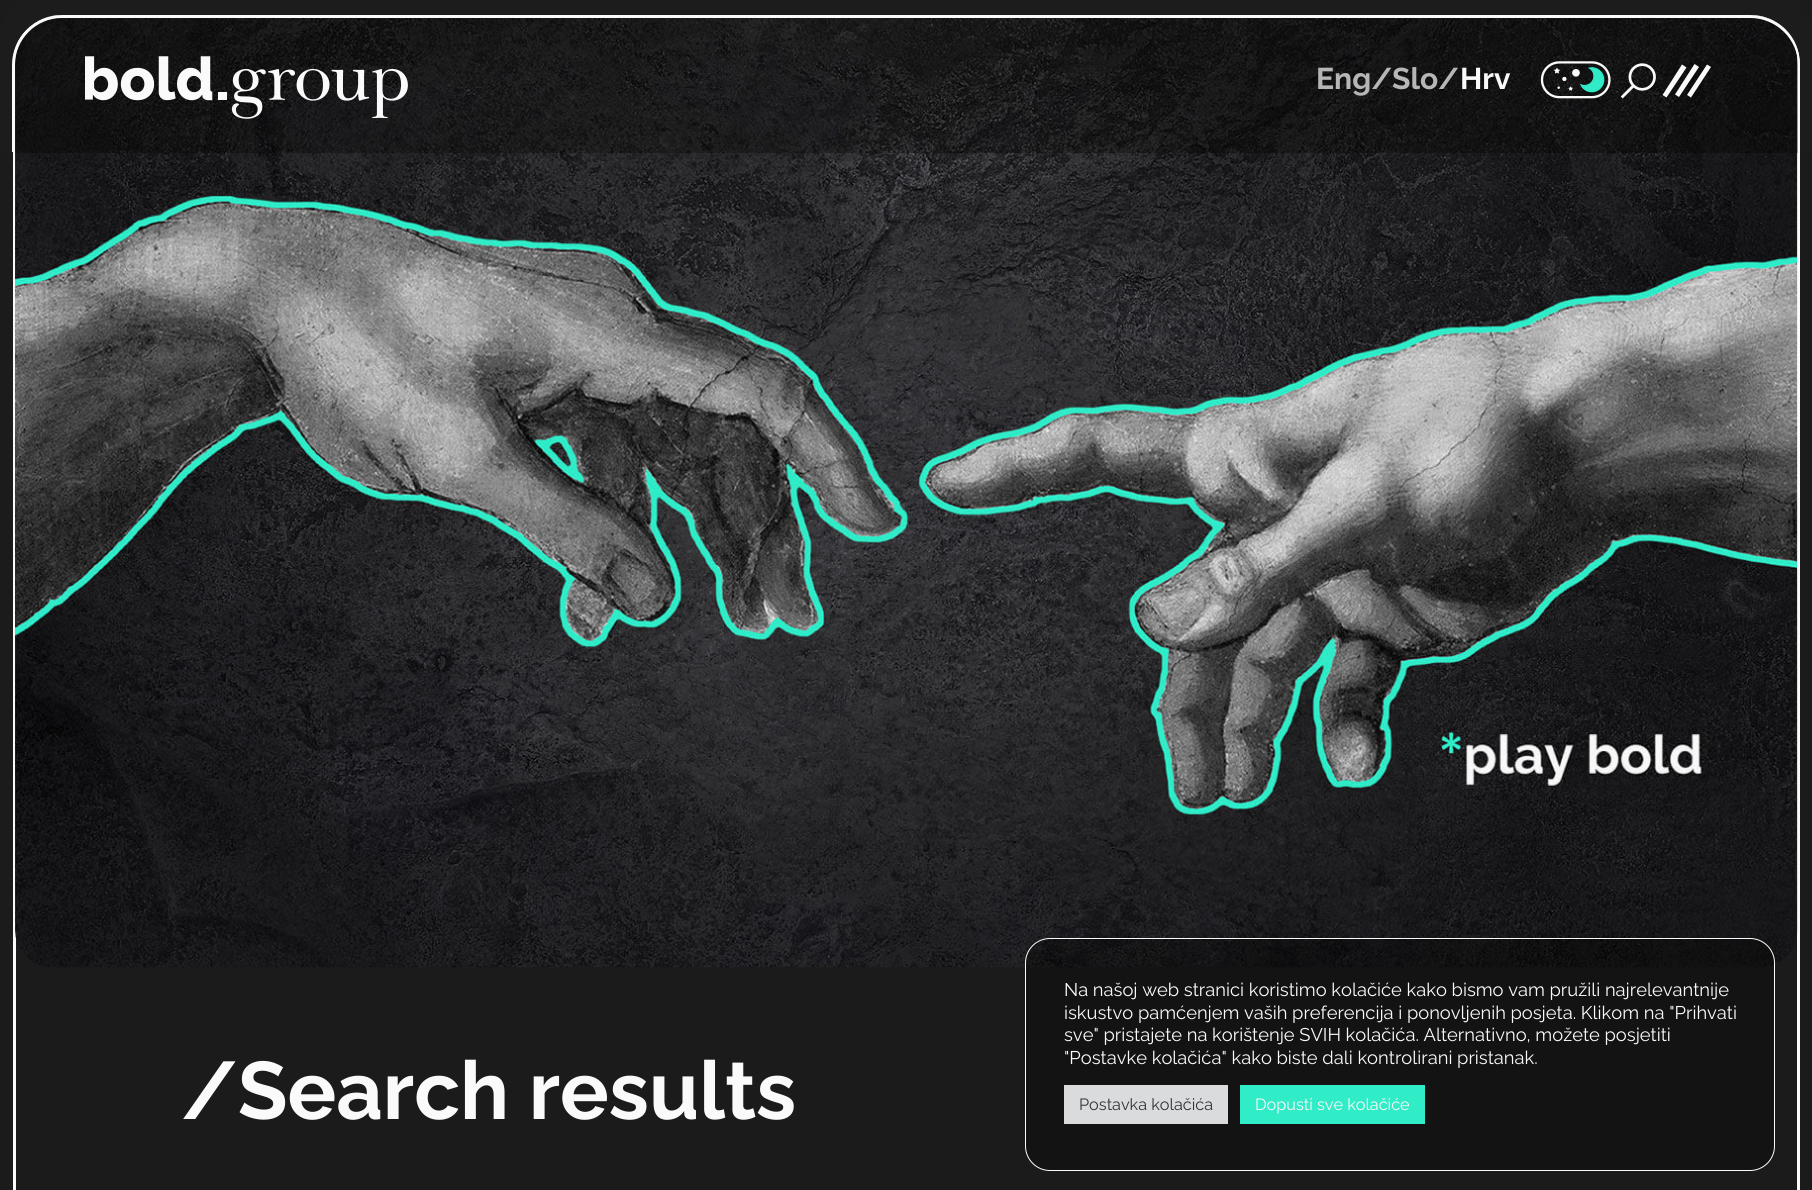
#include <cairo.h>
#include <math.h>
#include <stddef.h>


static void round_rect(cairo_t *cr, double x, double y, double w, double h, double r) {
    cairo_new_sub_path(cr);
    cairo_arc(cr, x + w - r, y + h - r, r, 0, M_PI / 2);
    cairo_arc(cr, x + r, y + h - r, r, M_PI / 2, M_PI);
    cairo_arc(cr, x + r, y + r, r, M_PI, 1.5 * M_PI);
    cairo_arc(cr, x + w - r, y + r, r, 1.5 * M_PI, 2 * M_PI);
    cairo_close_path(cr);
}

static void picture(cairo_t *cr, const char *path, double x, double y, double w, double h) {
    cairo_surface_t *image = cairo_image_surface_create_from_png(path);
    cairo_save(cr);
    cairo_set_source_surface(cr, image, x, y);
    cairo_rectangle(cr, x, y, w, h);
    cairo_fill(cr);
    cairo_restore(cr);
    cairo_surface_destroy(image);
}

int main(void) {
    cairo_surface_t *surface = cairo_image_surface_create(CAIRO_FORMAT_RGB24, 1812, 1190);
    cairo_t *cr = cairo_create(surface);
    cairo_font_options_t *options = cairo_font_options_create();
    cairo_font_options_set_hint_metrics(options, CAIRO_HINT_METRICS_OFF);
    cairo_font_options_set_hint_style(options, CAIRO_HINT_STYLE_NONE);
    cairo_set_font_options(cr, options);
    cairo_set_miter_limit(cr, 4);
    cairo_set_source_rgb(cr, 0.106, 0.106, 0.106);
    cairo_paint(cr);
    round_rect(cr, 14.5, 14.5, 1784, 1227, 48.5);
    cairo_set_source_rgb(cr, 0.98, 0.98, 0.98);
    cairo_set_line_width(cr, 3);
    cairo_stroke(cr);
    picture(cr, "img4.png", 15, 15, 1783, 953);
    cairo_set_source_rgb(cr, 0.11, 0.11, 0.11);
    cairo_new_path(cr);
    cairo_move_to(cr, 63, -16);
    cairo_curve_to(cr, 27, -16, -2, 13, -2, 49);
    cairo_line_to(cr, -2, 151);
    cairo_line_to(cr, 12, 151);
    cairo_line_to(cr, 12, 65);
    cairo_curve_to(cr, 12, 37, 35, 15, 62, 15);
    cairo_line_to(cr, 1750, 15);
    cairo_curve_to(cr, 1778, 15, 1800, 37, 1800, 65);
    cairo_line_to(cr, 1800, 151);
    cairo_line_to(cr, 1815, 151);
    cairo_line_to(cr, 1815, 49);
    cairo_curve_to(cr, 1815, 13, 1786, -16, 1750, -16);
    cairo_close_path(cr);
    cairo_fill(cr);
    cairo_set_source_rgb(cr, 0.98, 0.98, 0.98);
    cairo_set_fill_rule(cr, CAIRO_FILL_RULE_EVEN_ODD);
    cairo_new_path(cr);
    cairo_move_to(cr, 62, 15);
    cairo_line_to(cr, 1750, 15);
    cairo_curve_to(cr, 1778, 15, 1800, 37, 1800, 65);
    cairo_line_to(cr, 1800, 152);
    cairo_line_to(cr, 12, 152);
    cairo_line_to(cr, 12, 65);
    cairo_curve_to(cr, 12, 37, 35, 15, 62, 15);
    cairo_close_path(cr);
    cairo_move_to(cr, 62, 18);
    cairo_line_to(cr, 1750, 18);
    cairo_curve_to(cr, 1776, 18, 1798, 39, 1798, 65);
    cairo_line_to(cr, 1798, 152);
    cairo_line_to(cr, 15, 152);
    cairo_line_to(cr, 15, 65);
    cairo_curve_to(cr, 15, 39, 36, 18, 62, 18);
    cairo_close_path(cr);
    cairo_fill(cr);
    cairo_set_source_rgba(cr, 0.004, 0.004, 0.004, 0.3);
    cairo_new_path(cr);
    cairo_move_to(cr, 63, 18);
    cairo_line_to(cr, 1750, 18);
    cairo_curve_to(cr, 1776.5, 18, 1798, 39.5, 1798, 66);
    cairo_line_to(cr, 1798, 153);
    cairo_line_to(cr, 15, 153);
    cairo_line_to(cr, 15, 66);
    cairo_curve_to(cr, 15, 39.5, 36.5, 18, 63, 18);
    cairo_close_path(cr);
    cairo_fill(cr);
    picture(cr, "img1.png", 85, 56, 323, 63);
    cairo_select_font_face(cr, "Raleway", CAIRO_FONT_SLANT_NORMAL, CAIRO_FONT_WEIGHT_BOLD);
    cairo_set_font_size(cr, 30);
    cairo_set_source_rgb(cr, 0.714, 0.714, 0.714);
    cairo_move_to(cr, 1316, 89);
    cairo_show_text(cr, "Eng/");
    cairo_move_to(cr, 1392, 89);
    cairo_show_text(cr, "Slo/");
    cairo_set_source_rgb(cr, 0.98, 0.98, 0.98);
    cairo_move_to(cr, 1460, 89);
    cairo_show_text(cr, "Hrv");
    picture(cr, "img2.png", 1540, 61, 71, 38);
    picture(cr, "img3.png", 1620, 63, 36, 36);
    cairo_set_fill_rule(cr, CAIRO_FILL_RULE_WINDING);
    cairo_new_path(cr);
    cairo_move_to(cr, 1662.5, 95);
    cairo_line_to(cr, 1682, 64.5);
    cairo_line_to(cr, 1686.5, 67.5);
    cairo_line_to(cr, 1666.5, 97.5);
    cairo_close_path(cr);
    cairo_fill(cr);
    cairo_new_path(cr);
    cairo_move_to(cr, 1675, 94.5);
    cairo_line_to(cr, 1694.5, 64);
    cairo_line_to(cr, 1699, 67);
    cairo_line_to(cr, 1679, 97);
    cairo_close_path(cr);
    cairo_fill(cr);
    cairo_new_path(cr);
    cairo_move_to(cr, 1687, 95);
    cairo_line_to(cr, 1707, 64.5);
    cairo_line_to(cr, 1711, 67);
    cairo_line_to(cr, 1691, 97.5);
    cairo_close_path(cr);
    cairo_fill(cr);
    cairo_set_font_size(cr, 81.25);
    cairo_move_to(cr, 181, 1119);
    cairo_show_text(cr, "/Search results");
    cairo_set_source_rgba(cr, 0.004, 0.004, 0.004, 0.3);
    round_rect(cr, 1025.5, 938.5, 749, 232, 24.5);
    cairo_fill_preserve(cr);
    cairo_set_source_rgb(cr, 0.98, 0.98, 0.98);
    cairo_set_line_width(cr, 1);
    cairo_stroke(cr);
    cairo_select_font_face(cr, "Raleway", CAIRO_FONT_SLANT_NORMAL, CAIRO_FONT_WEIGHT_NORMAL);
    cairo_set_font_size(cr, 18.35);
    cairo_move_to(cr, 1064, 996);
    cairo_show_text(cr, "Na našoj web stranici koristimo kolačiće kako bismo vam pružili najrelevantnije");
    cairo_move_to(cr, 1064, 1019);
    cairo_show_text(cr, "iskustvo pamćenjem vaših preferencija i ponovljenih posjeta. Klikom na \"Prihvati");
    cairo_move_to(cr, 1064, 1041);
    cairo_show_text(cr, "sve\" pristajete na korištenje SVIH kolačića. Alternativno, možete posjetiti");
    cairo_move_to(cr, 1064, 1064);
    cairo_show_text(cr, "\"Postavke kolačića\" kako biste dali kontrolirani pristanak.");
    cairo_set_source_rgb(cr, 0.855, 0.859, 0.863);
    cairo_rectangle(cr, 1064, 1085, 164, 39);
    cairo_fill(cr);
    cairo_set_font_size(cr, 16.25);
    cairo_set_source_rgb(cr, 0.2, 0.2, 0.2);
    cairo_move_to(cr, 1079, 1110);
    cairo_show_text(cr, "Postavka kolačića");
    cairo_set_source_rgb(cr, 0.188, 0.922, 0.78);
    cairo_rectangle(cr, 1240, 1085, 185, 39);
    cairo_fill(cr);
    cairo_set_source_rgb(cr, 0.98, 0.98, 0.98);
    cairo_move_to(cr, 1255, 1110);
    cairo_show_text(cr, "Dopusti sve kolačiće");
    cairo_surface_write_to_png(surface, "page.png");
    cairo_font_options_destroy(options);
    cairo_destroy(cr);
    cairo_surface_destroy(surface);
    return 0;
}
